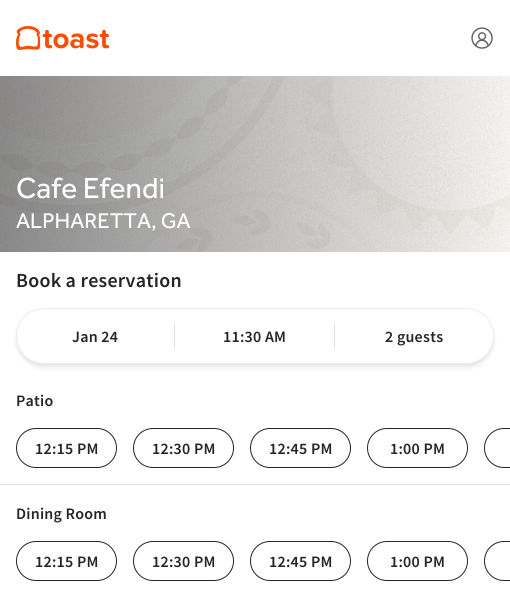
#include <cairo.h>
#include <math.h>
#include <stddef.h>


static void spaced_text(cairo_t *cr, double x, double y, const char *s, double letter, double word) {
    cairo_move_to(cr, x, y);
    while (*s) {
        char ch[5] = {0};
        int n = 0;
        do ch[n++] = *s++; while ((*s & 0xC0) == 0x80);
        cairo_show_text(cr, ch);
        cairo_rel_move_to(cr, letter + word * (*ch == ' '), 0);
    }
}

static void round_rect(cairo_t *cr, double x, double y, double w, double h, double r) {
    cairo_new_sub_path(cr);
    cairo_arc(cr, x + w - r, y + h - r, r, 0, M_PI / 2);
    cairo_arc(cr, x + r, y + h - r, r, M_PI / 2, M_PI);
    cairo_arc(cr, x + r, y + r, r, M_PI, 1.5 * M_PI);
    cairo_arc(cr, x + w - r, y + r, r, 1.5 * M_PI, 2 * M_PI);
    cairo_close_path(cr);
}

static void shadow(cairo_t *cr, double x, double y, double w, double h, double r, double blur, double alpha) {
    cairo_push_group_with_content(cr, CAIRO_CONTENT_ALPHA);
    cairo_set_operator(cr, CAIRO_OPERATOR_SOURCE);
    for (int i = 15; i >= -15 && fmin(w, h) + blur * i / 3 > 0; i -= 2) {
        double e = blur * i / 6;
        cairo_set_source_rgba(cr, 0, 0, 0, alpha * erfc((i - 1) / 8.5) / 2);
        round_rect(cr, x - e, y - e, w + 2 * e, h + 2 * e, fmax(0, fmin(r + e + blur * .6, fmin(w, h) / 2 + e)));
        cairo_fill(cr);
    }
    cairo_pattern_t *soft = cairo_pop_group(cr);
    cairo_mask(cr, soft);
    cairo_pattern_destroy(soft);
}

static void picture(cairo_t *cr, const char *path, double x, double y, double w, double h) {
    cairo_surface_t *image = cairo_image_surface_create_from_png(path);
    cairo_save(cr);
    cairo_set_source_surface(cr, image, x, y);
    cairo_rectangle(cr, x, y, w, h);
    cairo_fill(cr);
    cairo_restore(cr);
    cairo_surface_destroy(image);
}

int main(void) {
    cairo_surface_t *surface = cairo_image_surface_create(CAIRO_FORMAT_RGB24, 510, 601);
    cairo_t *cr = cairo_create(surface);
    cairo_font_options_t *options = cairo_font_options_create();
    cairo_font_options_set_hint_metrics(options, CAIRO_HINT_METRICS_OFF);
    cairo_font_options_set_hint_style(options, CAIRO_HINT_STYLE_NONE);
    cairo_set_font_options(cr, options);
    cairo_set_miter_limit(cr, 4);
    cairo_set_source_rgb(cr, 1, 1, 1);
    cairo_paint(cr);
    picture(cr, "img1.png", 16, 26, 93, 24);
    picture(cr, "img2.png", 471, 27, 22, 22);
    picture(cr, "img3.png", 0, 76, 510, 176);
    cairo_select_font_face(cr, "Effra", CAIRO_FONT_SLANT_NORMAL, CAIRO_FONT_WEIGHT_NORMAL);
    cairo_set_font_size(cr, 30);
    cairo_set_source_rgb(cr, 1, 1, 1);
    cairo_move_to(cr, 16, 198);
    cairo_show_text(cr, "Cafe Efendi");
    cairo_set_font_size(cr, 22);
    cairo_move_to(cr, 16, 228);
    cairo_show_text(cr, "ALPHARETTA, GA");
    cairo_select_font_face(cr, "Source Sans Pro SemiBold", CAIRO_FONT_SLANT_NORMAL, CAIRO_FONT_WEIGHT_NORMAL);
    cairo_set_font_size(cr, 20);
    cairo_set_source_rgb(cr, 0.145, 0.145, 0.145);
    spaced_text(cr, 16, 287, "Book a reservation", 0.25, 0);
    cairo_save(cr);
    cairo_set_fill_rule(cr, CAIRO_FILL_RULE_EVEN_ODD);
    cairo_new_path(cr);
    cairo_move_to(cr, 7, 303);
    cairo_line_to(cr, 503, 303);
    cairo_line_to(cr, 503, 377);
    cairo_line_to(cr, 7, 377);
    cairo_close_path(cr);
    cairo_move_to(cr, 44, 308);
    cairo_line_to(cr, 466, 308);
    cairo_curve_to(cr, 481.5, 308, 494, 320.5, 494, 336);
    cairo_curve_to(cr, 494, 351.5, 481.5, 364, 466, 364);
    cairo_line_to(cr, 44, 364);
    cairo_curve_to(cr, 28.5, 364, 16, 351.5, 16, 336);
    cairo_curve_to(cr, 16, 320.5, 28.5, 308, 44, 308);
    cairo_close_path(cr);
    cairo_clip(cr);
    cairo_set_source_rgb(cr, 0, 0, 0);
    shadow(cr, 16, 312, 478, 56, 28, 2.5, 0.06);
    cairo_restore(cr);
    cairo_save(cr);
    cairo_set_fill_rule(cr, CAIRO_FILL_RULE_EVEN_ODD);
    cairo_new_path(cr);
    cairo_move_to(cr, 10, 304);
    cairo_line_to(cr, 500, 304);
    cairo_line_to(cr, 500, 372);
    cairo_line_to(cr, 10, 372);
    cairo_close_path(cr);
    cairo_move_to(cr, 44, 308);
    cairo_line_to(cr, 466, 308);
    cairo_curve_to(cr, 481.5, 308, 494, 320.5, 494, 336);
    cairo_curve_to(cr, 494, 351.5, 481.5, 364, 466, 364);
    cairo_line_to(cr, 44, 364);
    cairo_curve_to(cr, 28.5, 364, 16, 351.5, 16, 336);
    cairo_curve_to(cr, 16, 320.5, 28.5, 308, 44, 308);
    cairo_close_path(cr);
    cairo_clip(cr);
    cairo_set_source_rgb(cr, 0, 0, 0);
    shadow(cr, 17, 311, 476, 54, 27, 2, 0.09);
    cairo_restore(cr);
    round_rect(cr, 16.5, 308.5, 477, 55, 27.5);
    cairo_set_source_rgba(cr, 0, 0, 0, 0.08);
    cairo_set_line_width(cr, 1);
    cairo_stroke(cr);
    cairo_set_source_rgb(cr, 0.878, 0.878, 0.878);
    cairo_rectangle(cr, 174, 324, 1, 24);
    cairo_fill(cr);
    cairo_set_font_size(cr, 16);
    cairo_set_source_rgb(cr, 0.145, 0.145, 0.145);
    spaced_text(cr, 72, 342, "Jan 24", 0.25, 0);
    cairo_set_source_rgb(cr, 0.878, 0.878, 0.878);
    cairo_rectangle(cr, 334, 324, 1, 24);
    cairo_fill(cr);
    cairo_set_source_rgb(cr, 0.145, 0.145, 0.145);
    spaced_text(cr, 223, 342, "11:30 AM", 0.25, 0);
    spaced_text(cr, 385, 342, "2 guests", 0.25, 0);
    spaced_text(cr, 16, 406, "Patio", 0.25, 0);
    round_rect(cr, 16.5, 428.5, 100, 39, 19.5);
    cairo_stroke(cr);
    spaced_text(cr, 35, 454, "12:15 PM", 0.25, 0);
    round_rect(cr, 133.5, 428.5, 100, 39, 19.5);
    cairo_stroke(cr);
    spaced_text(cr, 152, 454, "12:30 PM", 0.25, 0);
    round_rect(cr, 250.5, 428.5, 100, 39, 19.5);
    cairo_stroke(cr);
    spaced_text(cr, 269, 454, "12:45 PM", 0.25, 0);
    round_rect(cr, 367.5, 428.5, 100, 39, 19.5);
    cairo_stroke(cr);
    spaced_text(cr, 390, 454, "1:00 PM", 0.25, 0);
    round_rect(cr, 484.5, 428.5, 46, 39, 19.5);
    cairo_stroke(cr);
    cairo_set_source_rgb(cr, 0.878, 0.878, 0.878);
    cairo_rectangle(cr, 0, 484, 510, 1);
    cairo_fill(cr);
    cairo_set_source_rgb(cr, 0.145, 0.145, 0.145);
    spaced_text(cr, 16, 519, "Dining Room", 0.25, 0);
    round_rect(cr, 16.5, 541.5, 100, 39, 19.5);
    cairo_stroke(cr);
    spaced_text(cr, 35, 567, "12:15 PM", 0.25, 0);
    round_rect(cr, 133.5, 541.5, 100, 39, 19.5);
    cairo_stroke(cr);
    spaced_text(cr, 152, 567, "12:30 PM", 0.25, 0);
    round_rect(cr, 250.5, 541.5, 100, 39, 19.5);
    cairo_stroke(cr);
    spaced_text(cr, 269, 567, "12:45 PM", 0.25, 0);
    round_rect(cr, 367.5, 541.5, 100, 39, 19.5);
    cairo_stroke(cr);
    spaced_text(cr, 390, 567, "1:00 PM", 0.25, 0);
    round_rect(cr, 484.5, 541.5, 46, 39, 19.5);
    cairo_stroke(cr);
    cairo_surface_write_to_png(surface, "page.png");
    cairo_font_options_destroy(options);
    cairo_destroy(cr);
    cairo_surface_destroy(surface);
    return 0;
}
